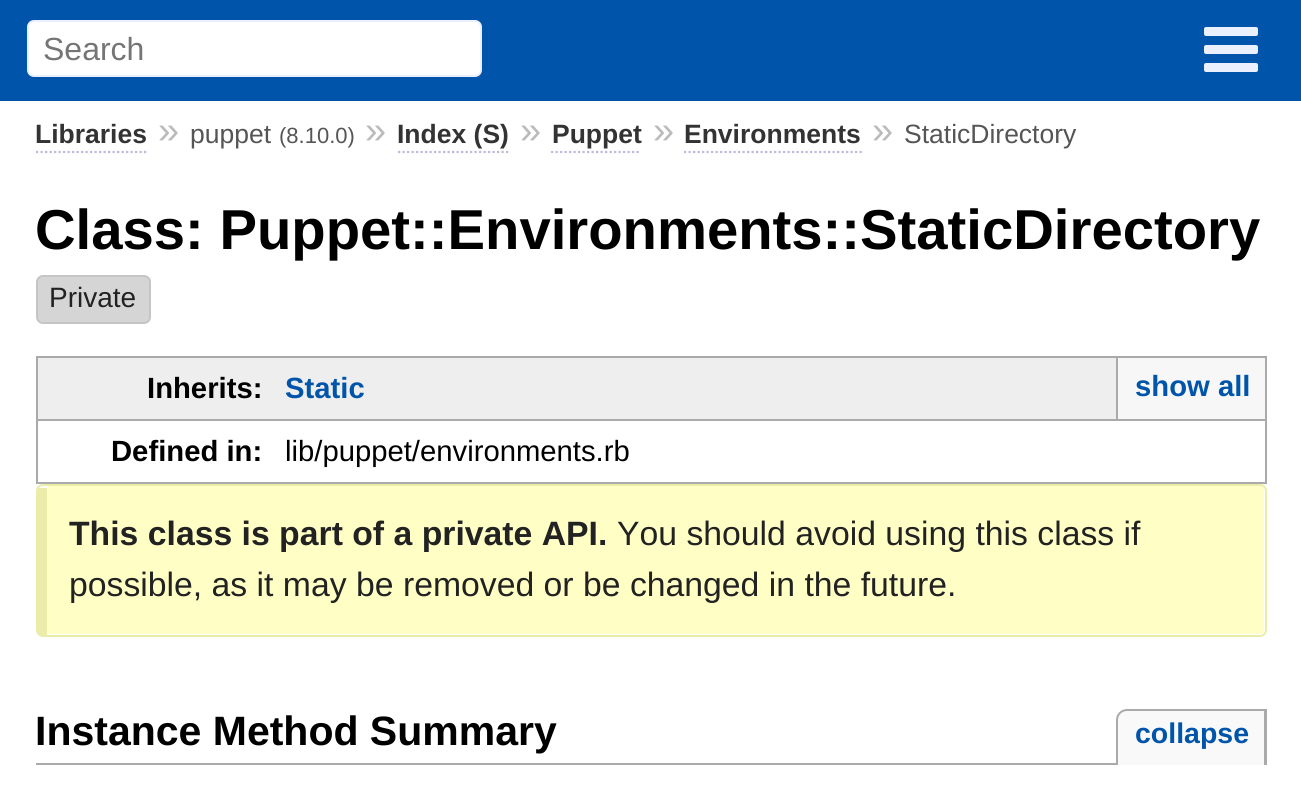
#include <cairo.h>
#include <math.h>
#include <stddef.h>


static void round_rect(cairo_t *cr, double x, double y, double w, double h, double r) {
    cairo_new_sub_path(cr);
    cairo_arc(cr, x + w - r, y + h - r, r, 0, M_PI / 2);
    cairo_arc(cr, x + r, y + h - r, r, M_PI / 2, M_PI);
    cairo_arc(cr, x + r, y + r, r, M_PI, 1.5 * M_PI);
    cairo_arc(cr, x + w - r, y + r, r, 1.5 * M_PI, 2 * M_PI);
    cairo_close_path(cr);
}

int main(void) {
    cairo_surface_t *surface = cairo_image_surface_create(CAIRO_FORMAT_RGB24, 1301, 787);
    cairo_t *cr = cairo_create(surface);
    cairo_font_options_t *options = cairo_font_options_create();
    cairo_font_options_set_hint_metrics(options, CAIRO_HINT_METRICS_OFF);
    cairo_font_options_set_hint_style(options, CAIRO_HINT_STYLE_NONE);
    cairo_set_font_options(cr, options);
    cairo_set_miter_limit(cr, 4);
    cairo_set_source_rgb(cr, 1, 1, 1);
    cairo_paint(cr);
    cairo_set_source_rgb(cr, 0, 0.333, 0.667);
    cairo_rectangle(cr, 0, 0, 1301, 101);
    cairo_fill(cr);
    cairo_set_source_rgb(cr, 1, 1, 1);
    round_rect(cr, 28, 21, 453, 55, 6);
    cairo_fill_preserve(cr);
    cairo_set_source_rgb(cr, 0.918, 0.941, 1);
    cairo_stroke(cr);
    cairo_select_font_face(cr, "Liberation Sans", CAIRO_FONT_SLANT_NORMAL, CAIRO_FONT_WEIGHT_NORMAL);
    cairo_set_font_size(cr, 32);
    cairo_set_source_rgb(cr, 0.459, 0.459, 0.459);
    cairo_move_to(cr, 43, 60);
    cairo_show_text(cr, "Search");
    cairo_set_source_rgb(cr, 0.918, 0.941, 1);
    round_rect(cr, 1204, 27, 54, 9, 2);
    cairo_fill(cr);
    round_rect(cr, 1204, 45, 54, 9, 2);
    cairo_fill(cr);
    round_rect(cr, 1204, 63, 54, 9, 2);
    cairo_fill(cr);
    cairo_select_font_face(cr, "Liberation Sans", CAIRO_FONT_SLANT_NORMAL, CAIRO_FONT_WEIGHT_BOLD);
    cairo_set_font_size(cr, 26.5);
    cairo_set_source_rgb(cr, 0.2, 0.2, 0.2);
    cairo_move_to(cr, 35, 143);
    cairo_show_text(cr, "Libraries");
    cairo_new_path(cr);
    cairo_move_to(cr, 36, 152);
    cairo_line_to(cr, 148.5, 152);
    cairo_set_source_rgb(cr, 0.733, 0.733, 0.867);
    cairo_set_line_width(cr, 2.2);
    cairo_set_dash(cr, (double[]){2.25, 2.25}, 2, 0);
    cairo_stroke(cr);
    cairo_select_font_face(cr, "Liberation Sans", CAIRO_FONT_SLANT_NORMAL, CAIRO_FONT_WEIGHT_NORMAL);
    cairo_set_font_size(cr, 38);
    cairo_set_source_rgb(cr, 0.733, 0.733, 0.733);
    cairo_move_to(cr, 158, 143);
    cairo_show_text(cr, "»");
    cairo_set_font_size(cr, 26.5);
    cairo_set_source_rgb(cr, 0.333, 0.333, 0.333);
    cairo_move_to(cr, 190, 143);
    cairo_show_text(cr, "puppet");
    cairo_set_font_size(cr, 22);
    cairo_move_to(cr, 279, 143);
    cairo_show_text(cr, "(8.10.0)");
    cairo_set_font_size(cr, 38);
    cairo_set_source_rgb(cr, 0.733, 0.733, 0.733);
    cairo_move_to(cr, 365, 143);
    cairo_show_text(cr, "»");
    cairo_select_font_face(cr, "Liberation Sans", CAIRO_FONT_SLANT_NORMAL, CAIRO_FONT_WEIGHT_BOLD);
    cairo_set_font_size(cr, 26.5);
    cairo_set_source_rgb(cr, 0.2, 0.2, 0.2);
    cairo_move_to(cr, 397, 143);
    cairo_show_text(cr, "Index (S)");
    cairo_new_path(cr);
    cairo_move_to(cr, 398, 152);
    cairo_line_to(cr, 508.5, 152);
    cairo_set_source_rgb(cr, 0.733, 0.733, 0.867);
    cairo_stroke(cr);
    cairo_select_font_face(cr, "Liberation Sans", CAIRO_FONT_SLANT_NORMAL, CAIRO_FONT_WEIGHT_NORMAL);
    cairo_set_font_size(cr, 38);
    cairo_set_source_rgb(cr, 0.733, 0.733, 0.733);
    cairo_move_to(cr, 520, 143);
    cairo_show_text(cr, "»");
    cairo_select_font_face(cr, "Liberation Sans", CAIRO_FONT_SLANT_NORMAL, CAIRO_FONT_WEIGHT_BOLD);
    cairo_set_font_size(cr, 26.5);
    cairo_set_source_rgb(cr, 0.2, 0.2, 0.2);
    cairo_move_to(cr, 552, 143);
    cairo_show_text(cr, "Puppet");
    cairo_new_path(cr);
    cairo_move_to(cr, 551, 152);
    cairo_line_to(cr, 641, 152);
    cairo_set_source_rgb(cr, 0.733, 0.733, 0.867);
    cairo_stroke(cr);
    cairo_select_font_face(cr, "Liberation Sans", CAIRO_FONT_SLANT_NORMAL, CAIRO_FONT_WEIGHT_NORMAL);
    cairo_set_font_size(cr, 38);
    cairo_set_source_rgb(cr, 0.733, 0.733, 0.733);
    cairo_move_to(cr, 653, 143);
    cairo_show_text(cr, "»");
    cairo_select_font_face(cr, "Liberation Sans", CAIRO_FONT_SLANT_NORMAL, CAIRO_FONT_WEIGHT_BOLD);
    cairo_set_font_size(cr, 26.5);
    cairo_set_source_rgb(cr, 0.2, 0.2, 0.2);
    cairo_move_to(cr, 684, 143);
    cairo_show_text(cr, "Environments");
    cairo_new_path(cr);
    cairo_move_to(cr, 684, 152);
    cairo_line_to(cr, 862, 152);
    cairo_set_source_rgb(cr, 0.733, 0.733, 0.867);
    cairo_stroke(cr);
    cairo_select_font_face(cr, "Liberation Sans", CAIRO_FONT_SLANT_NORMAL, CAIRO_FONT_WEIGHT_NORMAL);
    cairo_set_font_size(cr, 38);
    cairo_set_source_rgb(cr, 0.733, 0.733, 0.733);
    cairo_move_to(cr, 872, 143);
    cairo_show_text(cr, "»");
    cairo_set_font_size(cr, 26.5);
    cairo_set_source_rgb(cr, 0.333, 0.333, 0.333);
    cairo_move_to(cr, 904, 143);
    cairo_show_text(cr, "StaticDirectory");
    cairo_select_font_face(cr, "Liberation Sans", CAIRO_FONT_SLANT_NORMAL, CAIRO_FONT_WEIGHT_BOLD);
    cairo_set_font_size(cr, 56.25);
    cairo_set_source_rgb(cr, 0, 0, 0);
    cairo_move_to(cr, 35, 249);
    cairo_show_text(cr, "Class: Puppet::Environments::StaticDirectory");
    cairo_set_source_rgb(cr, 0.835, 0.835, 0.835);
    round_rect(cr, 37, 276, 113, 47, 6);
    cairo_fill_preserve(cr);
    cairo_set_source_rgb(cr, 0.773, 0.773, 0.773);
    cairo_set_line_width(cr, 2);
    cairo_set_dash(cr, NULL, 0, 0);
    cairo_stroke(cr);
    cairo_select_font_face(cr, "Liberation Sans", CAIRO_FONT_SLANT_NORMAL, CAIRO_FONT_WEIGHT_NORMAL);
    cairo_set_font_size(cr, 28);
    cairo_set_source_rgb(cr, 0.133, 0.133, 0.133);
    cairo_move_to(cr, 49, 307);
    cairo_show_text(cr, "Private");
    cairo_set_source_rgb(cr, 0.933, 0.933, 0.933);
    cairo_rectangle(cr, 38, 358, 1078, 61);
    cairo_fill(cr);
    cairo_set_source_rgb(cr, 0.667, 0.667, 0.667);
    cairo_rectangle(cr, 36, 356, 1231, 2);
    cairo_fill(cr);
    cairo_rectangle(cr, 36, 356, 2, 63);
    cairo_fill(cr);
    cairo_select_font_face(cr, "Liberation Sans", CAIRO_FONT_SLANT_NORMAL, CAIRO_FONT_WEIGHT_BOLD);
    cairo_set_font_size(cr, 29.25);
    cairo_set_source_rgb(cr, 0, 0, 0);
    cairo_move_to(cr, 147, 398);
    cairo_show_text(cr, "Inherits:");
    cairo_set_source_rgb(cr, 0.667, 0.667, 0.667);
    cairo_rectangle(cr, 36, 419, 1231, 2);
    cairo_fill(cr);
    cairo_rectangle(cr, 1265, 356, 2, 128);
    cairo_fill(cr);
    cairo_set_source_rgb(cr, 0, 0.333, 0.667);
    cairo_move_to(cr, 285, 398);
    cairo_show_text(cr, "Static");
    cairo_set_source_rgb(cr, 0.965, 0.965, 0.965);
    cairo_rectangle(cr, 1118, 358, 147, 61);
    cairo_fill(cr);
    cairo_set_source_rgb(cr, 0.667, 0.667, 0.667);
    cairo_rectangle(cr, 1116, 358, 2, 61);
    cairo_fill(cr);
    cairo_set_source_rgb(cr, 0, 0.333, 0.667);
    cairo_move_to(cr, 1135, 396);
    cairo_show_text(cr, "show all");
    cairo_set_source_rgb(cr, 0.667, 0.667, 0.667);
    cairo_rectangle(cr, 36, 482, 250, 2);
    cairo_fill(cr);
    cairo_rectangle(cr, 36, 419, 2, 65);
    cairo_fill(cr);
    cairo_set_source_rgb(cr, 0, 0, 0);
    cairo_move_to(cr, 111, 461);
    cairo_show_text(cr, "Defined in:");
    cairo_set_source_rgb(cr, 0.667, 0.667, 0.667);
    cairo_rectangle(cr, 286, 482, 981, 2);
    cairo_fill(cr);
    cairo_select_font_face(cr, "Liberation Sans", CAIRO_FONT_SLANT_NORMAL, CAIRO_FONT_WEIGHT_NORMAL);
    cairo_set_source_rgb(cr, 0, 0, 0);
    cairo_move_to(cr, 285, 461);
    cairo_show_text(cr, "lib/puppet/environments.rb");
    cairo_set_source_rgb(cr, 1, 1, 0.773);
    cairo_new_path(cr);
    cairo_move_to(cr, 47, 486);
    cairo_line_to(cr, 1260, 486);
    cairo_curve_to(cr, 1262, 486, 1264, 488, 1264, 490);
    cairo_line_to(cr, 1264, 630);
    cairo_curve_to(cr, 1264, 632, 1262, 634, 1260, 634);
    cairo_line_to(cr, 47, 634);
    cairo_close_path(cr);
    cairo_fill(cr);
    round_rect(cr, 37, 485, 1229, 151, 6);
    cairo_set_source_rgb(cr, 0.925, 0.925, 0.667);
    cairo_stroke(cr);
    cairo_rectangle(cr, 38, 488, 9, 147);
    cairo_fill(cr);
    cairo_select_font_face(cr, "Liberation Sans", CAIRO_FONT_SLANT_NORMAL, CAIRO_FONT_WEIGHT_BOLD);
    cairo_set_font_size(cr, 33.75);
    cairo_set_source_rgb(cr, 0.133, 0.133, 0.133);
    cairo_move_to(cr, 69, 545);
    cairo_show_text(cr, "This class is part of a private API.");
    cairo_select_font_face(cr, "Liberation Sans", CAIRO_FONT_SLANT_NORMAL, CAIRO_FONT_WEIGHT_NORMAL);
    cairo_move_to(cr, 617, 545);
    cairo_show_text(cr, "You should avoid using this class if");
    cairo_move_to(cr, 69, 596);
    cairo_show_text(cr, "possible, as it may be removed or be changed in the future.");
    cairo_set_source_rgb(cr, 0.667, 0.667, 0.667);
    cairo_rectangle(cr, 36, 763, 1080, 2);
    cairo_fill(cr);
    cairo_select_font_face(cr, "Liberation Sans", CAIRO_FONT_SLANT_NORMAL, CAIRO_FONT_WEIGHT_BOLD);
    cairo_set_font_size(cr, 41);
    cairo_set_source_rgb(cr, 0, 0, 0);
    cairo_move_to(cr, 35, 745);
    cairo_show_text(cr, "Instance Method Summary");
    cairo_set_source_rgb(cr, 0.973, 0.973, 0.973);
    cairo_new_path(cr);
    cairo_move_to(cr, 1127, 709);
    cairo_line_to(cr, 1267, 709);
    cairo_line_to(cr, 1267, 765);
    cairo_line_to(cr, 1116, 765);
    cairo_line_to(cr, 1116, 720);
    cairo_curve_to(cr, 1116, 714, 1121, 709, 1127, 709);
    cairo_close_path(cr);
    cairo_fill(cr);
    cairo_set_source_rgb(cr, 0.667, 0.667, 0.667);
    cairo_set_fill_rule(cr, CAIRO_FILL_RULE_EVEN_ODD);
    cairo_new_path(cr);
    cairo_move_to(cr, 1127, 709);
    cairo_line_to(cr, 1267, 709);
    cairo_line_to(cr, 1267, 765);
    cairo_line_to(cr, 1116, 765);
    cairo_line_to(cr, 1116, 720);
    cairo_curve_to(cr, 1116, 714, 1121, 709, 1127, 709);
    cairo_close_path(cr);
    cairo_move_to(cr, 1127, 711);
    cairo_line_to(cr, 1264, 711);
    cairo_line_to(cr, 1264, 765);
    cairo_line_to(cr, 1118, 765);
    cairo_line_to(cr, 1118, 720);
    cairo_curve_to(cr, 1118, 715, 1122, 711, 1127, 711);
    cairo_close_path(cr);
    cairo_fill(cr);
    cairo_set_font_size(cr, 28.5);
    cairo_set_source_rgb(cr, 0, 0.333, 0.667);
    cairo_move_to(cr, 1135, 743);
    cairo_show_text(cr, "collapse");
    cairo_surface_write_to_png(surface, "page.png");
    cairo_font_options_destroy(options);
    cairo_destroy(cr);
    cairo_surface_destroy(surface);
    return 0;
}
